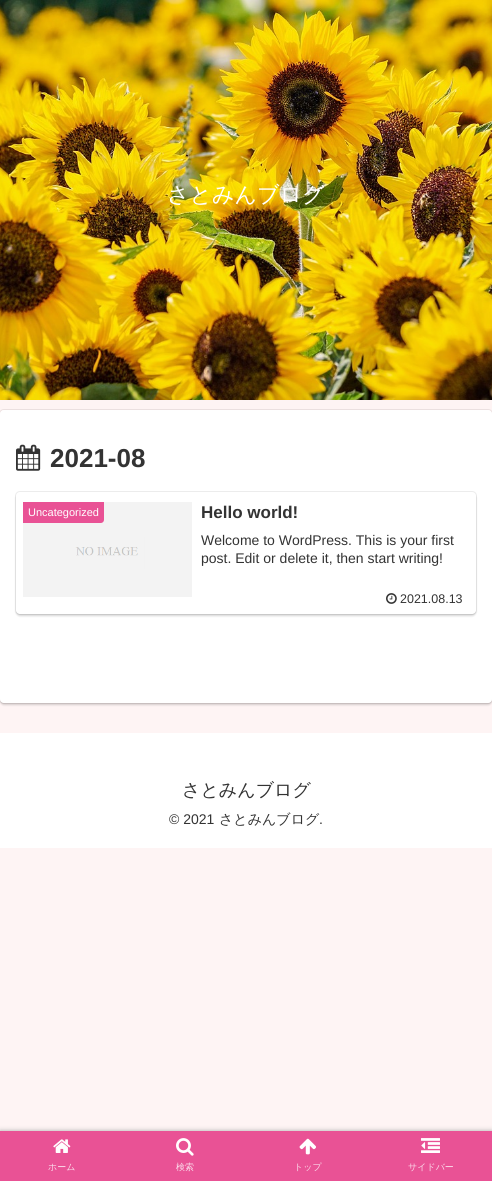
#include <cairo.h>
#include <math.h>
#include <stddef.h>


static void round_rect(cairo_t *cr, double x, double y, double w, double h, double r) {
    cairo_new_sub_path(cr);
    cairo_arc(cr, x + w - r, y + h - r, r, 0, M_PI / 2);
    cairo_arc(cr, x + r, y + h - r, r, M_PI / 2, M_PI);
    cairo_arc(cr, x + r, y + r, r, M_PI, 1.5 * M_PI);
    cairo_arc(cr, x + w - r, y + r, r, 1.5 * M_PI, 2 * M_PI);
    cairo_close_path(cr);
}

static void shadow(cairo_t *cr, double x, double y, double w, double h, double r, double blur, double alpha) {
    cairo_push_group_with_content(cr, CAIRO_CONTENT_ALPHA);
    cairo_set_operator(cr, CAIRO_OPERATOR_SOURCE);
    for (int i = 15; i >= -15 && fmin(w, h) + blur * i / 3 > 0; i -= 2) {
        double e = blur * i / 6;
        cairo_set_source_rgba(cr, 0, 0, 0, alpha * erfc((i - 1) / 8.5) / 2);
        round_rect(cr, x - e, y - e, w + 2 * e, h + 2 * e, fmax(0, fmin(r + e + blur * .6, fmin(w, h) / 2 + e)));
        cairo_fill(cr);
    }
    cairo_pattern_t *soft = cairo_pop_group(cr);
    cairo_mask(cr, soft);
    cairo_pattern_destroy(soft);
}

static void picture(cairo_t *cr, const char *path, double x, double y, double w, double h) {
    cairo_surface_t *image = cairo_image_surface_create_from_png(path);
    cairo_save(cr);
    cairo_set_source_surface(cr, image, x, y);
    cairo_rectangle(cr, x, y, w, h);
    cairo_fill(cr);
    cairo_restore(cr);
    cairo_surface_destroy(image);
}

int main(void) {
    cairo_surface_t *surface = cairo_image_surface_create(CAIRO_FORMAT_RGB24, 492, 1181);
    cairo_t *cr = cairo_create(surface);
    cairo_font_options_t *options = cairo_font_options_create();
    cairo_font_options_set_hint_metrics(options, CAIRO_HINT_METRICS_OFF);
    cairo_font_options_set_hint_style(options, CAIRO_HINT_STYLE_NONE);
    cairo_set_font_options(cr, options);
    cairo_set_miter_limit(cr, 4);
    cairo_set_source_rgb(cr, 0.996, 0.957, 0.957);
    cairo_paint(cr);
    picture(cr, "img1.png", 0, 0, 492, 400);
    cairo_select_font_face(cr, "WenQuanYi Zen Hei Medium", CAIRO_FONT_SLANT_NORMAL, CAIRO_FONT_WEIGHT_NORMAL);
    cairo_set_font_size(cr, 22);
    cairo_set_source_rgb(cr, 1, 1, 1);
    cairo_move_to(cr, 167, 202);
    cairo_show_text(cr, "さとみんブログ");
    round_rect(cr, -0.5, 409.5, 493, 294, 4.5);
    cairo_set_source_rgb(cr, 0.918, 0.878, 0.878);
    cairo_set_line_width(cr, 1);
    cairo_stroke(cr);
    cairo_set_source_rgb(cr, 0, 0, 0);
    shadow(cr, 0, 412, 492, 293, 4, 1, 0.16);
    cairo_set_source_rgb(cr, 1, 1, 1);
    round_rect(cr, 0, 410, 492, 293, 4);
    cairo_fill(cr);
    picture(cr, "img2.png", 16, 444, 25, 27);
    cairo_select_font_face(cr, "Liberation Sans", CAIRO_FONT_SLANT_NORMAL, CAIRO_FONT_WEIGHT_BOLD);
    cairo_set_font_size(cr, 26);
    cairo_set_source_rgb(cr, 0.2, 0.2, 0.2);
    cairo_move_to(cr, 50, 467);
    cairo_show_text(cr, "2021-08");
    round_rect(cr, 15.5, 491.5, 461, 123, 4.5);
    cairo_set_source_rgb(cr, 0.922, 0.922, 0.922);
    cairo_stroke(cr);
    cairo_save(cr);
    cairo_set_fill_rule(cr, CAIRO_FILL_RULE_EVEN_ODD);
    cairo_new_path(cr);
    cairo_move_to(cr, 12, 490);
    cairo_line_to(cr, 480, 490);
    cairo_line_to(cr, 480, 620);
    cairo_line_to(cr, 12, 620);
    cairo_close_path(cr);
    cairo_move_to(cr, 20, 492);
    cairo_line_to(cr, 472, 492);
    cairo_curve_to(cr, 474, 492, 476, 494, 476, 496);
    cairo_line_to(cr, 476, 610);
    cairo_curve_to(cr, 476, 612, 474, 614, 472, 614);
    cairo_line_to(cr, 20, 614);
    cairo_curve_to(cr, 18, 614, 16, 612, 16, 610);
    cairo_line_to(cr, 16, 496);
    cairo_curve_to(cr, 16, 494, 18, 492, 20, 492);
    cairo_close_path(cr);
    cairo_clip(cr);
    cairo_set_source_rgb(cr, 0, 0, 0);
    shadow(cr, 16, 494, 460, 122, 4, 1, 0.16);
    cairo_restore(cr);
    picture(cr, "img3.png", 23, 502, 169, 95);
    cairo_set_source_rgb(cr, 0.914, 0.322, 0.584);
    cairo_new_path(cr);
    cairo_move_to(cr, 23, 502);
    cairo_line_to(cr, 104, 502);
    cairo_line_to(cr, 104, 520);
    cairo_curve_to(cr, 104, 521.5, 102.5, 523, 101, 523);
    cairo_line_to(cr, 23, 523);
    cairo_close_path(cr);
    cairo_fill(cr);
    cairo_select_font_face(cr, "Liberation Sans", CAIRO_FONT_SLANT_NORMAL, CAIRO_FONT_WEIGHT_NORMAL);
    cairo_set_font_size(cr, 11);
    cairo_set_source_rgb(cr, 1, 1, 1);
    cairo_move_to(cr, 28, 516);
    cairo_show_text(cr, "Uncategorized");
    cairo_select_font_face(cr, "Liberation Sans", CAIRO_FONT_SLANT_NORMAL, CAIRO_FONT_WEIGHT_BOLD);
    cairo_set_font_size(cr, 17);
    cairo_set_source_rgb(cr, 0.2, 0.2, 0.2);
    cairo_move_to(cr, 201, 518);
    cairo_show_text(cr, "Hello world!");
    cairo_select_font_face(cr, "Liberation Sans", CAIRO_FONT_SLANT_NORMAL, CAIRO_FONT_WEIGHT_NORMAL);
    cairo_set_font_size(cr, 14);
    cairo_move_to(cr, 201, 545);
    cairo_show_text(cr, "Welcome to WordPress. This is your first");
    cairo_move_to(cr, 201, 563);
    cairo_show_text(cr, "post. Edit or delete it, then start writing!");
    picture(cr, "img4.png", 386, 593, 11, 11);
    cairo_set_font_size(cr, 12.5);
    cairo_move_to(cr, 400, 603);
    cairo_show_text(cr, "2021.08.13");
    cairo_set_source_rgb(cr, 1, 1, 1);
    cairo_rectangle(cr, 0, 733, 492, 115);
    cairo_fill(cr);
    cairo_select_font_face(cr, "WenQuanYi Zen Hei Medium", CAIRO_FONT_SLANT_NORMAL, CAIRO_FONT_WEIGHT_NORMAL);
    cairo_set_font_size(cr, 18);
    cairo_set_source_rgb(cr, 0.2, 0.2, 0.2);
    cairo_move_to(cr, 182, 796);
    cairo_show_text(cr, "さとみんブログ");
    cairo_select_font_face(cr, "Liberation Sans", CAIRO_FONT_SLANT_NORMAL, CAIRO_FONT_WEIGHT_NORMAL);
    cairo_set_font_size(cr, 14);
    cairo_move_to(cr, 169, 824);
    cairo_show_text(cr, "© 2021");
    cairo_select_font_face(cr, "WenQuanYi Zen Hei Medium", CAIRO_FONT_SLANT_NORMAL, CAIRO_FONT_WEIGHT_NORMAL);
    cairo_move_to(cr, 219, 824);
    cairo_show_text(cr, "さとみんブログ");
    cairo_select_font_face(cr, "Liberation Sans", CAIRO_FONT_SLANT_NORMAL, CAIRO_FONT_WEIGHT_NORMAL);
    cairo_move_to(cr, 319, 824);
    cairo_show_text(cr, ".");
    cairo_set_source_rgb(cr, 0.663, 0.663, 0.663);
    shadow(cr, 0, 1131, 492, 50, 0, 2.5, 1);
    cairo_set_source_rgb(cr, 0.914, 0.322, 0.584);
    cairo_rectangle(cr, 0, 1131, 492, 50);
    cairo_fill(cr);
    picture(cr, "img5.png", 53, 1139, 18, 14);
    cairo_select_font_face(cr, "WenQuanYi Zen Hei Medium", CAIRO_FONT_SLANT_NORMAL, CAIRO_FONT_WEIGHT_NORMAL);
    cairo_set_font_size(cr, 9);
    cairo_set_source_rgb(cr, 0.984, 0.863, 0.918);
    cairo_move_to(cr, 48, 1170);
    cairo_show_text(cr, "ホーム");
    picture(cr, "img6.png", 176, 1138, 18, 18);
    cairo_move_to(cr, 176, 1170);
    cairo_show_text(cr, "検索");
    picture(cr, "img7.png", 299, 1138, 17, 17);
    cairo_move_to(cr, 294, 1170);
    cairo_show_text(cr, "トップ");
    picture(cr, "img8.png", 421, 1138, 19, 15);
    cairo_move_to(cr, 408, 1170);
    cairo_show_text(cr, "サイドバー");
    cairo_surface_write_to_png(surface, "page.png");
    cairo_font_options_destroy(options);
    cairo_destroy(cr);
    cairo_surface_destroy(surface);
    return 0;
}
